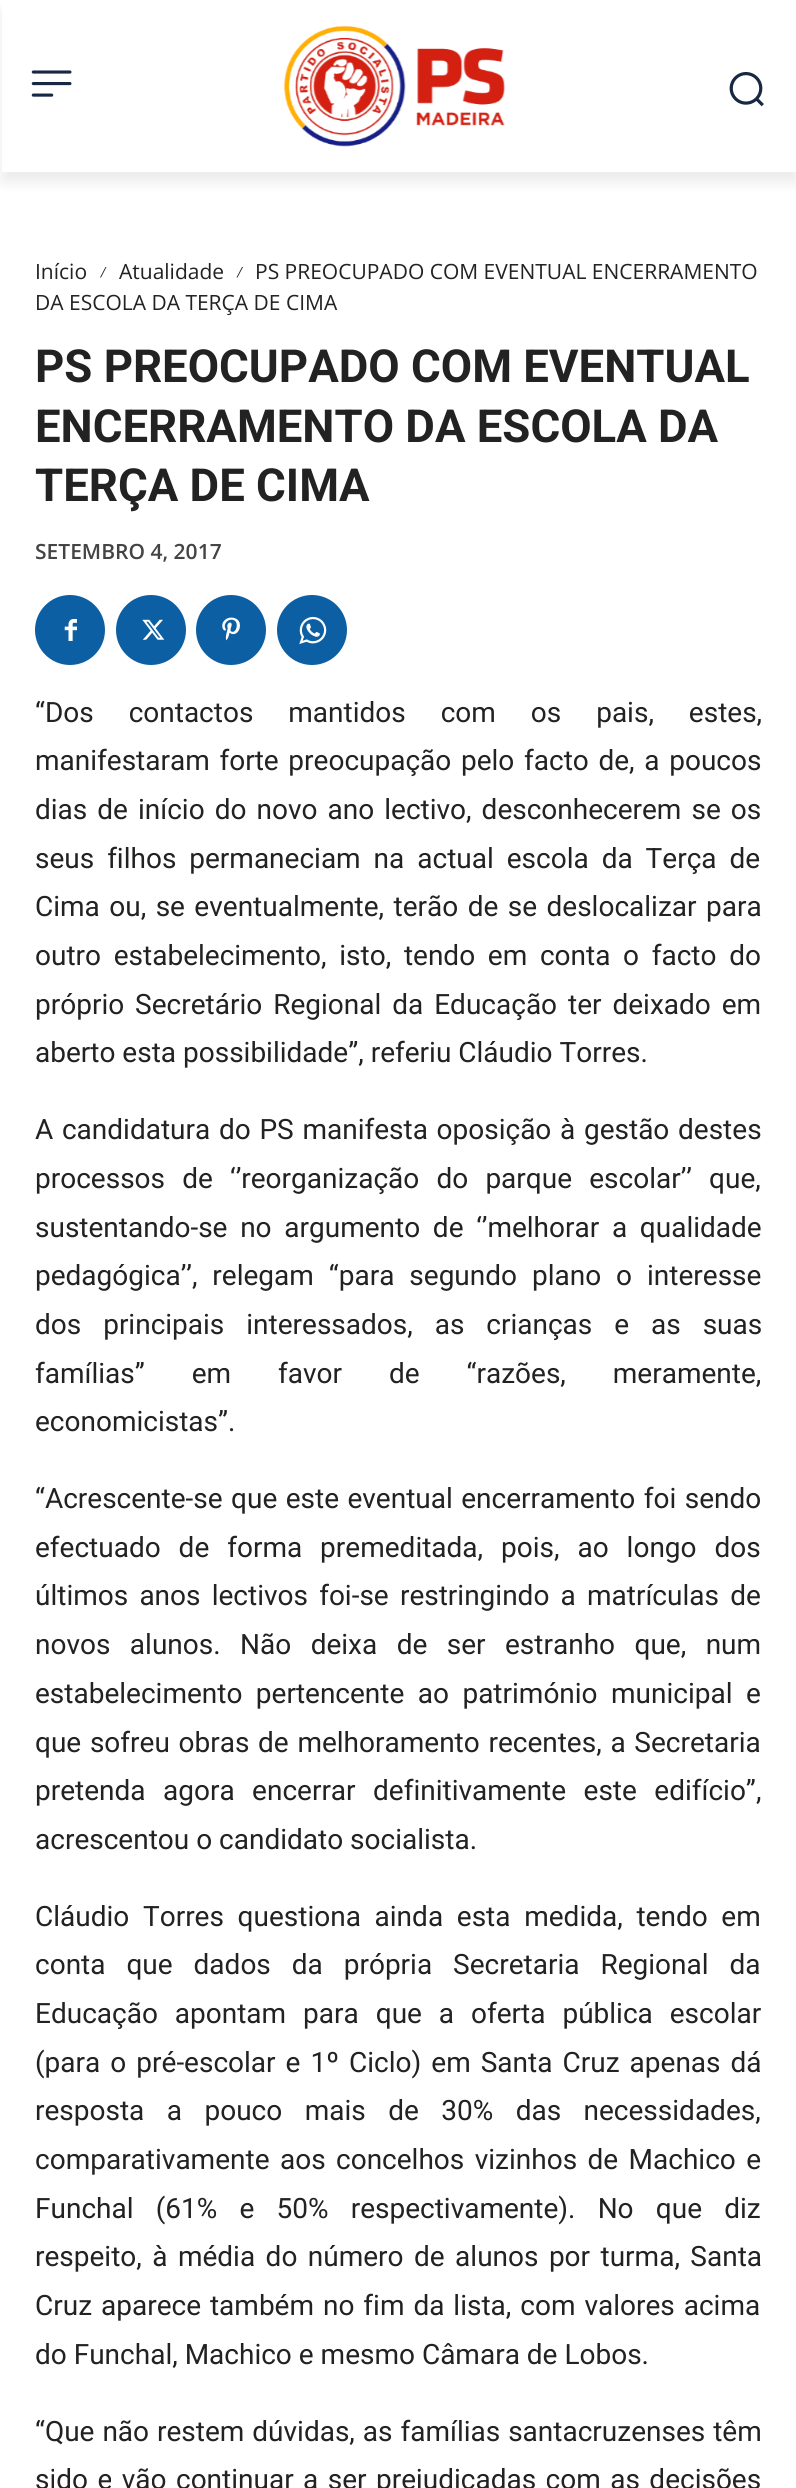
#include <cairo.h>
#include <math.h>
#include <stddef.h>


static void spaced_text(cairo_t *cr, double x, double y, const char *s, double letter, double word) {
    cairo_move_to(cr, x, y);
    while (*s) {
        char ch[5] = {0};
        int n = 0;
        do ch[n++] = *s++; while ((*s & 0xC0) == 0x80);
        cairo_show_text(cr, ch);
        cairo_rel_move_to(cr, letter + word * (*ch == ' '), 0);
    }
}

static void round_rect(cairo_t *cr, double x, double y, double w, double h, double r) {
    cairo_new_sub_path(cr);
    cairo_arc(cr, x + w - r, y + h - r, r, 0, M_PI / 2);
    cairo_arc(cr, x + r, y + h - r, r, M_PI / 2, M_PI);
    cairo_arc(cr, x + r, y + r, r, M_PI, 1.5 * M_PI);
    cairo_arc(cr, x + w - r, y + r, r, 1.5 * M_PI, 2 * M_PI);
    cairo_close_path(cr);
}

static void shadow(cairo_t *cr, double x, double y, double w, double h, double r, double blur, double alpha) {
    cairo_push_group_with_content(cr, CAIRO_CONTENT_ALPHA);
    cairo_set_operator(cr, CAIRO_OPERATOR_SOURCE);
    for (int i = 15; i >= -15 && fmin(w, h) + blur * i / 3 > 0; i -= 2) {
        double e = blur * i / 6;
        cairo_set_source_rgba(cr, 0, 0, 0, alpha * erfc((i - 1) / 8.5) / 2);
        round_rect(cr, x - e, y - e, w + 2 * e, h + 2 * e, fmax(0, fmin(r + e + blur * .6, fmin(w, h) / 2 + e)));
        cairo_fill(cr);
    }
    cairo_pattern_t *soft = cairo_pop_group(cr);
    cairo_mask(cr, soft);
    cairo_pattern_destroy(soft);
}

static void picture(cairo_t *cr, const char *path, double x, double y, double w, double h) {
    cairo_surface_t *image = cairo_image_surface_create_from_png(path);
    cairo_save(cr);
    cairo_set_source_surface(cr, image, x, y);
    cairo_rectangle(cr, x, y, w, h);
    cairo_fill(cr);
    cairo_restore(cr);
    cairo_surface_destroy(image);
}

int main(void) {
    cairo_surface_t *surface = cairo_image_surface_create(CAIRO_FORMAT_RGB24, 796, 2488);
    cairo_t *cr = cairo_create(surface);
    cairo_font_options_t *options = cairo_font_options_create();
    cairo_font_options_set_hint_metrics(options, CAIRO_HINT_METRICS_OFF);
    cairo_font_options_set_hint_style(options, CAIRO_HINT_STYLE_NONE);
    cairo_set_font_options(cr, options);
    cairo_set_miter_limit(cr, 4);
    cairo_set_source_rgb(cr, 1, 1, 1);
    cairo_paint(cr);
    picture(cr, "img1.png", 31, 70, 41, 27);
    picture(cr, "img2.png", 284, 26, 222, 121);
    picture(cr, "img3.png", 729, 72, 35, 35);
    cairo_save(cr);
    cairo_set_fill_rule(cr, CAIRO_FILL_RULE_EVEN_ODD);
    cairo_new_path(cr);
    cairo_move_to(cr, 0, 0);
    cairo_line_to(cr, 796, 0);
    cairo_line_to(cr, 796, 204);
    cairo_line_to(cr, 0, 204);
    cairo_close_path(cr);
    cairo_move_to(cr, 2, 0);
    cairo_line_to(cr, 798, 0);
    cairo_line_to(cr, 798, 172);
    cairo_line_to(cr, 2, 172);
    cairo_close_path(cr);
    cairo_clip(cr);
    cairo_set_source_rgb(cr, 0, 0, 0);
    shadow(cr, 2, 11, 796, 171, 0, 7, 0.08);
    cairo_restore(cr);
    cairo_select_font_face(cr, "Open Sans", CAIRO_FONT_SLANT_NORMAL, CAIRO_FONT_WEIGHT_NORMAL);
    cairo_set_font_size(cr, 21);
    cairo_set_source_rgb(cr, 0.133, 0.133, 0.133);
    cairo_move_to(cr, 35, 279);
    cairo_show_text(cr, "Início");
    cairo_new_path(cr);
    cairo_move_to(cr, 105.5, 267);
    cairo_line_to(cr, 100, 277.5);
    cairo_line_to(cr, 101, 277.5);
    cairo_line_to(cr, 106.5, 267);
    cairo_close_path(cr);
    cairo_fill(cr);
    cairo_move_to(cr, 119, 279);
    cairo_show_text(cr, "Atualidade");
    cairo_new_path(cr);
    cairo_move_to(cr, 242, 267);
    cairo_line_to(cr, 236.5, 277.5);
    cairo_line_to(cr, 237.5, 277.5);
    cairo_line_to(cr, 243, 267);
    cairo_close_path(cr);
    cairo_fill(cr);
    cairo_move_to(cr, 255, 279);
    cairo_show_text(cr, "PS PREOCUPADO COM EVENTUAL ENCERRAMENTO");
    cairo_move_to(cr, 35, 310);
    cairo_show_text(cr, "DA ESCOLA DA TERÇA DE CIMA");
    cairo_select_font_face(cr, "Roboto", CAIRO_FONT_SLANT_NORMAL, CAIRO_FONT_WEIGHT_BOLD);
    cairo_set_font_size(cr, 45.5);
    cairo_move_to(cr, 35, 382);
    cairo_show_text(cr, "PS PREOCUPADO COM EVENTUAL");
    cairo_move_to(cr, 35, 442);
    cairo_show_text(cr, "ENCERRAMENTO DA ESCOLA DA");
    cairo_move_to(cr, 35, 501);
    cairo_show_text(cr, "TERÇA DE CIMA");
    cairo_select_font_face(cr, "Open Sans SemiBold", CAIRO_FONT_SLANT_NORMAL, CAIRO_FONT_WEIGHT_NORMAL);
    cairo_set_font_size(cr, 21);
    cairo_set_source_rgb(cr, 0.267, 0.267, 0.267);
    cairo_move_to(cr, 35, 559);
    cairo_show_text(cr, "SETEMBRO 4, 2017");
    cairo_set_source_rgb(cr, 0.047, 0.373, 0.639);
    cairo_new_path(cr);
    cairo_arc(cr, 70, 630, 35, 0, 2 * M_PI);
    cairo_fill(cr);
    picture(cr, "img4.png", 64, 619, 13, 22);
    cairo_arc(cr, 151, 630, 35, 0, 2 * M_PI);
    cairo_fill(cr);
    picture(cr, "img5.png", 142, 619, 23, 21);
    cairo_arc(cr, 231, 630, 35, 0, 2 * M_PI);
    cairo_fill(cr);
    picture(cr, "img6.png", 222, 617, 18, 24);
    cairo_arc(cr, 312, 630, 35, 0, 2 * M_PI);
    cairo_fill(cr);
    picture(cr, "img7.png", 299, 616, 28, 28);
    cairo_select_font_face(cr, "Roboto", CAIRO_FONT_SLANT_NORMAL, CAIRO_FONT_WEIGHT_NORMAL);
    cairo_set_font_size(cr, 28);
    cairo_set_source_rgb(cr, 0.133, 0.133, 0.133);
    spaced_text(cr, 35, 722, "“Dos contactos mantidos com os pais, estes,", 0, 28);
    spaced_text(cr, 35, 770, "manifestaram forte preocupação pelo facto de, a poucos", 0, 2.75);
    spaced_text(cr, 35, 819, "dias de início do novo ano lectivo, desconhecerem se os", 0, 3.1);
    spaced_text(cr, 35, 868, "seus filhos permaneciam na actual escola da Terça de", 0, 6);
    spaced_text(cr, 35, 916, "Cima ou, se eventualmente, terão de se deslocalizar para", 0, 2.5);
    spaced_text(cr, 35, 965, "outro estabelecimento, isto, tendo em conta o facto do", 0, 5.75);
    spaced_text(cr, 35, 1014, "próprio Secretário Regional da Educação ter deixado em", 0, 4);
    cairo_move_to(cr, 35, 1062);
    cairo_show_text(cr, "aberto esta possibilidade”, referiu Cláudio Torres.");
    spaced_text(cr, 35, 1139, "A candidatura do PS manifesta oposição à gestão destes", 0, 1.75);
    spaced_text(cr, 35, 1188, "processos de ‘’reorganização do parque escolar’’ que,", 0, 10.25);
    spaced_text(cr, 35, 1237, "sustentando-se no argumento de ‘’melhorar a qualidade", 0, 5.75);
    spaced_text(cr, 35, 1285, "pedagógica’’, relegam “para segundo plano o interesse", 0, 8);
    spaced_text(cr, 35, 1334, "dos principais interessados, as crianças e as suas", 0, 15);
    spaced_text(cr, 35, 1383, "famílias” em favor de “razões, meramente,", 0, 40);
    cairo_move_to(cr, 35, 1431);
    cairo_show_text(cr, "economicistas”.");
    spaced_text(cr, 35, 1508, "“Acrescente-se que este eventual encerramento foi sendo", 0, 1.5);
    spaced_text(cr, 35, 1557, "efectuado de forma premeditada, pois, ao longo dos", 0, 11);
    spaced_text(cr, 35, 1605, "últimos anos lectivos foi-se restringindo a matrículas de", 0, 4.25);
    spaced_text(cr, 35, 1654, "novos alunos. Não deixa de ser estranho que, num", 0, 12.5);
    spaced_text(cr, 35, 1703, "estabelecimento pertencente ao património municipal e", 0, 6.5);
    spaced_text(cr, 35, 1752, "que sofreu obras de melhoramento recentes, a Secretaria", 0, 1.75);
    spaced_text(cr, 35, 1800, "pretenda agora encerrar definitivamente este edifício”,", 0, 10.5);
    cairo_move_to(cr, 35, 1849);
    cairo_show_text(cr, "acrescentou o candidato socialista.");
    spaced_text(cr, 35, 1926, "Cláudio Torres questiona ainda esta medida, tendo em", 0, 6.75);
    spaced_text(cr, 35, 1974, "conta que dados da própria Secretaria Regional da", 0, 14);
    spaced_text(cr, 35, 2023, "Educação apontam para que a oferta pública escolar", 0, 10);
    spaced_text(cr, 35, 2072, "(para o pré-escolar e 1º Ciclo) em Santa Cruz apenas dá", 0, 3.1);
    spaced_text(cr, 35, 2120, "resposta a pouco mais de 30% das necessidades,", 0, 15.5);
    spaced_text(cr, 35, 2169, "comparativamente aos concelhos vizinhos de Machico e", 0, 3.5);
    spaced_text(cr, 35, 2218, "Funchal (61% e 50% respectivamente). No que diz", 0, 15.25);
    spaced_text(cr, 35, 2266, "respeito, à média do número de alunos por turma, Santa", 0, 3.5);
    spaced_text(cr, 35, 2315, "Cruz aparece também no fim da lista, com valores acima", 0, 2);
    cairo_move_to(cr, 35, 2364);
    cairo_show_text(cr, "do Funchal, Machico e mesmo Câmara de Lobos.");
    spaced_text(cr, 35, 2441, "“Que não restem dúvidas, as famílias santacruzenses têm", 0, 1);
    spaced_text(cr, 35, 2489, "sido e vão continuar a ser prejudicadas com as decisões", 0, 2.5);
    cairo_surface_write_to_png(surface, "page.png");
    cairo_font_options_destroy(options);
    cairo_destroy(cr);
    cairo_surface_destroy(surface);
    return 0;
}
